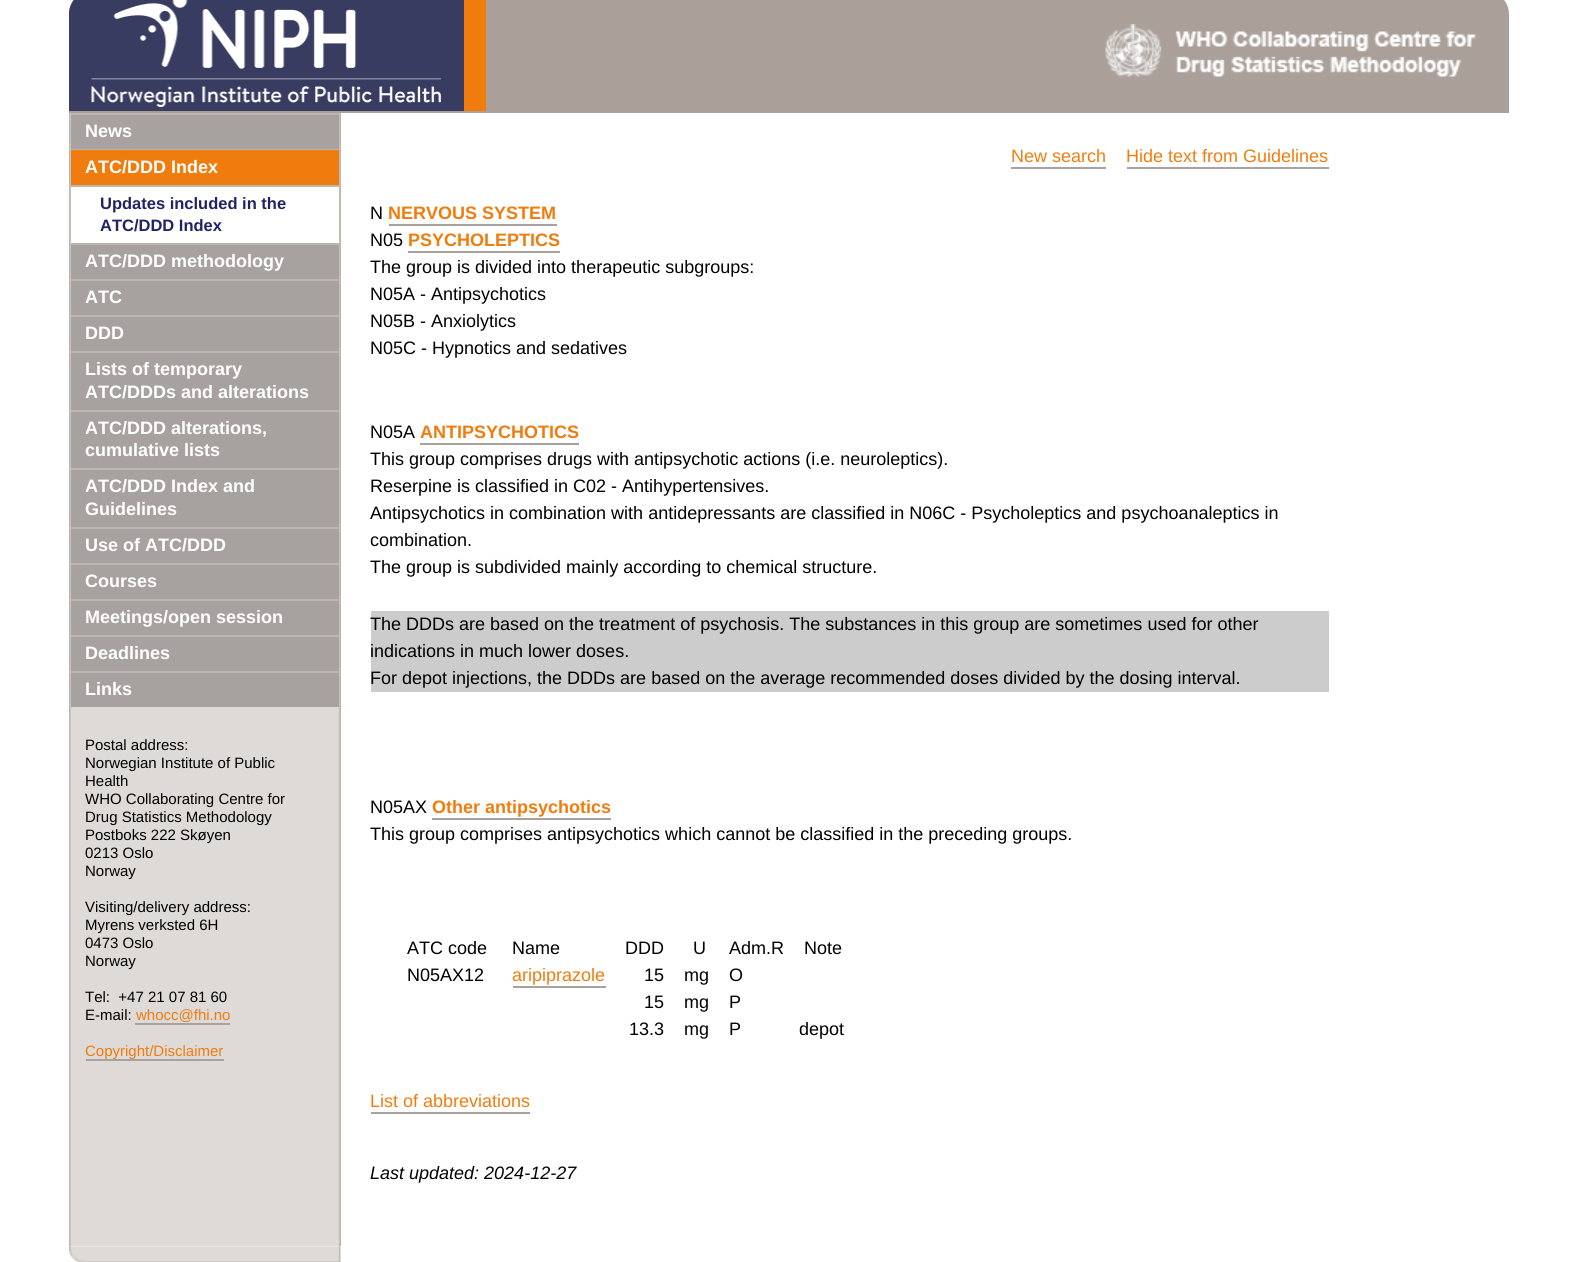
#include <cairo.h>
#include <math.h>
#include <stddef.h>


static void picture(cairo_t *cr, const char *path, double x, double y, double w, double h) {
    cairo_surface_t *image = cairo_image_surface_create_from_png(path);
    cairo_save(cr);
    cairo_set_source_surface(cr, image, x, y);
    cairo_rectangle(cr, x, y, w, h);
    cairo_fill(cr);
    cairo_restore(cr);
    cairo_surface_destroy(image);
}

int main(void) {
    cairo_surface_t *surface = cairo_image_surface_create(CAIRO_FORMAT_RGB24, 1576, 1262);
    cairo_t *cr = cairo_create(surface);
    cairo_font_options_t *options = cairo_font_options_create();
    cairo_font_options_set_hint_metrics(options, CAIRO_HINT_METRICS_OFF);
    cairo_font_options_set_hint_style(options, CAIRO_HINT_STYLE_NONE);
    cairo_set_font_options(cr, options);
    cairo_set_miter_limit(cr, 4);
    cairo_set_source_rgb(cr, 1, 1, 1);
    cairo_paint(cr);
    cairo_set_source_rgb(cr, 0.671, 0.627, 0.6);
    cairo_new_path(cr);
    cairo_move_to(cr, 92, -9);
    cairo_line_to(cr, 1486, -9);
    cairo_curve_to(cr, 1498.5, -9, 1509, 1.5, 1509, 14);
    cairo_line_to(cr, 1509, 113);
    cairo_line_to(cr, 69, 113);
    cairo_line_to(cr, 69, 14);
    cairo_curve_to(cr, 69, 1.5, 79.5, -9, 92, -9);
    cairo_close_path(cr);
    cairo_fill(cr);
    picture(cr, "img1.png", 69, 0, 5, 14);
    cairo_set_source_rgb(cr, 0.224, 0.235, 0.38);
    cairo_new_path(cr);
    cairo_move_to(cr, 92, -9);
    cairo_line_to(cr, 486, -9);
    cairo_line_to(cr, 486, 111);
    cairo_line_to(cr, 69, 111);
    cairo_line_to(cr, 69, 14);
    cairo_curve_to(cr, 69, 1.5, 79.5, -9, 92, -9);
    cairo_close_path(cr);
    cairo_fill(cr);
    cairo_set_source_rgb(cr, 0.945, 0.486, 0.055);
    cairo_rectangle(cr, 464, 0, 22, 111);
    cairo_fill(cr);
    picture(cr, "img2.png", 91, 0, 350, 107);
    picture(cr, "img3.png", 1105, 24, 371, 53);
    picture(cr, "img4.png", 69, 113, 272, 1134);
    cairo_set_source_rgb(cr, 0.655, 0.635, 0.627);
    cairo_rectangle(cr, 71, 115, 268, 34);
    cairo_fill(cr);
    cairo_set_source_rgb(cr, 0.741, 0.714, 0.69);
    cairo_rectangle(cr, 71, 113, 268, 2);
    cairo_fill(cr);
    cairo_select_font_face(cr, "Liberation Sans", CAIRO_FONT_SLANT_NORMAL, CAIRO_FONT_WEIGHT_BOLD);
    cairo_set_font_size(cr, 18);
    cairo_set_source_rgb(cr, 1, 1, 1);
    cairo_move_to(cr, 85, 137);
    cairo_show_text(cr, "News");
    cairo_set_source_rgb(cr, 0.741, 0.714, 0.69);
    cairo_rectangle(cr, 71, 149, 268, 1);
    cairo_fill(cr);
    cairo_set_source_rgb(cr, 0.945, 0.486, 0.055);
    cairo_rectangle(cr, 71, 150, 268, 35);
    cairo_fill(cr);
    cairo_set_source_rgb(cr, 1, 1, 1);
    cairo_move_to(cr, 85, 173);
    cairo_show_text(cr, "ATC/DDD Index");
    cairo_rectangle(cr, 71, 187, 268, 56);
    cairo_fill(cr);
    cairo_set_source_rgb(cr, 0.741, 0.714, 0.69);
    cairo_rectangle(cr, 71, 185, 268, 2);
    cairo_fill(cr);
    cairo_set_font_size(cr, 16.5);
    cairo_set_source_rgb(cr, 0.133, 0.133, 0.4);
    cairo_move_to(cr, 100, 209);
    cairo_show_text(cr, "Updates included in the");
    cairo_move_to(cr, 100, 231);
    cairo_show_text(cr, "ATC/DDD Index");
    cairo_set_source_rgb(cr, 0.655, 0.635, 0.627);
    cairo_rectangle(cr, 71, 245, 268, 34);
    cairo_fill(cr);
    cairo_set_source_rgb(cr, 0.741, 0.714, 0.69);
    cairo_rectangle(cr, 71, 243, 268, 2);
    cairo_fill(cr);
    cairo_set_font_size(cr, 18);
    cairo_set_source_rgb(cr, 1, 1, 1);
    cairo_move_to(cr, 85, 267);
    cairo_show_text(cr, "ATC/DDD methodology");
    cairo_set_source_rgb(cr, 0.655, 0.635, 0.627);
    cairo_rectangle(cr, 71, 281, 268, 34);
    cairo_fill(cr);
    cairo_set_source_rgb(cr, 0.741, 0.714, 0.69);
    cairo_rectangle(cr, 71, 279, 268, 2);
    cairo_fill(cr);
    cairo_set_source_rgb(cr, 1, 1, 1);
    cairo_move_to(cr, 85, 303);
    cairo_show_text(cr, "ATC");
    cairo_set_source_rgb(cr, 0.655, 0.635, 0.627);
    cairo_rectangle(cr, 71, 317, 268, 34);
    cairo_fill(cr);
    cairo_set_source_rgb(cr, 0.741, 0.714, 0.69);
    cairo_rectangle(cr, 71, 315, 268, 2);
    cairo_fill(cr);
    cairo_set_source_rgb(cr, 1, 1, 1);
    cairo_move_to(cr, 85, 339);
    cairo_show_text(cr, "DDD");
    cairo_set_source_rgb(cr, 0.655, 0.635, 0.627);
    cairo_rectangle(cr, 71, 353, 268, 57);
    cairo_fill(cr);
    cairo_set_source_rgb(cr, 0.741, 0.714, 0.69);
    cairo_rectangle(cr, 71, 351, 268, 2);
    cairo_fill(cr);
    cairo_set_source_rgb(cr, 1, 1, 1);
    cairo_move_to(cr, 85, 375);
    cairo_show_text(cr, "Lists of temporary");
    cairo_move_to(cr, 85, 398);
    cairo_show_text(cr, "ATC/DDDs and alterations");
    cairo_set_source_rgb(cr, 0.655, 0.635, 0.627);
    cairo_rectangle(cr, 71, 412, 268, 56);
    cairo_fill(cr);
    cairo_set_source_rgb(cr, 0.741, 0.714, 0.69);
    cairo_rectangle(cr, 71, 410, 268, 2);
    cairo_fill(cr);
    cairo_set_source_rgb(cr, 1, 1, 1);
    cairo_move_to(cr, 85, 434);
    cairo_show_text(cr, "ATC/DDD alterations,");
    cairo_move_to(cr, 85, 456);
    cairo_show_text(cr, "cumulative lists");
    cairo_set_source_rgb(cr, 0.655, 0.635, 0.627);
    cairo_rectangle(cr, 71, 470, 268, 57);
    cairo_fill(cr);
    cairo_set_source_rgb(cr, 0.741, 0.714, 0.69);
    cairo_rectangle(cr, 71, 468, 268, 2);
    cairo_fill(cr);
    cairo_set_source_rgb(cr, 1, 1, 1);
    cairo_move_to(cr, 85, 492);
    cairo_show_text(cr, "ATC/DDD Index and");
    cairo_move_to(cr, 85, 515);
    cairo_show_text(cr, "Guidelines");
    cairo_set_source_rgb(cr, 0.655, 0.635, 0.627);
    cairo_rectangle(cr, 71, 529, 268, 34);
    cairo_fill(cr);
    cairo_set_source_rgb(cr, 0.741, 0.714, 0.69);
    cairo_rectangle(cr, 71, 527, 268, 2);
    cairo_fill(cr);
    cairo_set_source_rgb(cr, 1, 1, 1);
    cairo_move_to(cr, 85, 551);
    cairo_show_text(cr, "Use of ATC/DDD");
    cairo_set_source_rgb(cr, 0.655, 0.635, 0.627);
    cairo_rectangle(cr, 71, 565, 268, 34);
    cairo_fill(cr);
    cairo_set_source_rgb(cr, 0.741, 0.714, 0.69);
    cairo_rectangle(cr, 71, 563, 268, 2);
    cairo_fill(cr);
    cairo_set_source_rgb(cr, 1, 1, 1);
    cairo_move_to(cr, 85, 587);
    cairo_show_text(cr, "Courses");
    cairo_set_source_rgb(cr, 0.655, 0.635, 0.627);
    cairo_rectangle(cr, 71, 601, 268, 34);
    cairo_fill(cr);
    cairo_set_source_rgb(cr, 0.741, 0.714, 0.69);
    cairo_rectangle(cr, 71, 599, 268, 2);
    cairo_fill(cr);
    cairo_set_source_rgb(cr, 1, 1, 1);
    cairo_move_to(cr, 85, 623);
    cairo_show_text(cr, "Meetings/open session");
    cairo_set_source_rgb(cr, 0.655, 0.635, 0.627);
    cairo_rectangle(cr, 71, 637, 268, 34);
    cairo_fill(cr);
    cairo_set_source_rgb(cr, 0.741, 0.714, 0.69);
    cairo_rectangle(cr, 71, 635, 268, 2);
    cairo_fill(cr);
    cairo_set_source_rgb(cr, 1, 1, 1);
    cairo_move_to(cr, 85, 659);
    cairo_show_text(cr, "Deadlines");
    cairo_set_source_rgb(cr, 0.655, 0.635, 0.627);
    cairo_rectangle(cr, 71, 673, 268, 34);
    cairo_fill(cr);
    cairo_set_source_rgb(cr, 0.741, 0.714, 0.69);
    cairo_rectangle(cr, 71, 671, 268, 2);
    cairo_fill(cr);
    cairo_set_source_rgb(cr, 1, 1, 1);
    cairo_move_to(cr, 85, 695);
    cairo_show_text(cr, "Links");
    cairo_select_font_face(cr, "Liberation Sans", CAIRO_FONT_SLANT_NORMAL, CAIRO_FONT_WEIGHT_NORMAL);
    cairo_set_font_size(cr, 15);
    cairo_set_source_rgb(cr, 0, 0, 0);
    cairo_move_to(cr, 85, 750);
    cairo_show_text(cr, "Postal address:");
    cairo_move_to(cr, 85, 768);
    cairo_show_text(cr, "Norwegian Institute of Public");
    cairo_move_to(cr, 85, 786);
    cairo_show_text(cr, "Health");
    cairo_move_to(cr, 85, 804);
    cairo_show_text(cr, "WHO Collaborating Centre for");
    cairo_move_to(cr, 85, 822);
    cairo_show_text(cr, "Drug Statistics Methodology");
    cairo_move_to(cr, 85, 840);
    cairo_show_text(cr, "Postboks 222 Skøyen");
    cairo_move_to(cr, 85, 858);
    cairo_show_text(cr, "0213 Oslo");
    cairo_move_to(cr, 85, 876);
    cairo_show_text(cr, "Norway");
    cairo_move_to(cr, 85, 912);
    cairo_show_text(cr, "Visiting/delivery address:");
    cairo_move_to(cr, 85, 930);
    cairo_show_text(cr, "Myrens verksted 6H");
    cairo_move_to(cr, 85, 948);
    cairo_show_text(cr, "0473 Oslo");
    cairo_move_to(cr, 85, 966);
    cairo_show_text(cr, "Norway");
    cairo_move_to(cr, 85, 1002);
    cairo_show_text(cr, "Tel:  +47 21 07 81 60");
    cairo_move_to(cr, 85, 1020);
    cairo_show_text(cr, "E-mail:");
    cairo_set_source_rgb(cr, 0.945, 0.486, 0.055);
    cairo_move_to(cr, 136, 1020);
    cairo_show_text(cr, "whocc@fhi.no");
    cairo_set_source_rgb(cr, 0.655, 0.635, 0.627);
    cairo_rectangle(cr, 135, 1023, 95, 2);
    cairo_fill(cr);
    cairo_rectangle(cr, 86, 1059, 138, 2);
    cairo_fill(cr);
    cairo_set_source_rgb(cr, 0.945, 0.486, 0.055);
    cairo_move_to(cr, 85, 1056);
    cairo_show_text(cr, "Copyright/Disclaimer");
    cairo_set_font_size(cr, 18);
    cairo_move_to(cr, 1011, 162);
    cairo_show_text(cr, "New search");
    cairo_set_source_rgb(cr, 0.655, 0.635, 0.627);
    cairo_rectangle(cr, 1011, 167, 95, 2);
    cairo_fill(cr);
    cairo_set_source_rgb(cr, 0.945, 0.486, 0.055);
    cairo_move_to(cr, 1126, 162);
    cairo_show_text(cr, "Hide text from Guidelines");
    cairo_set_source_rgb(cr, 0.655, 0.635, 0.627);
    cairo_rectangle(cr, 1127, 167, 202, 2);
    cairo_fill(cr);
    cairo_set_source_rgb(cr, 0, 0, 0);
    cairo_move_to(cr, 370, 219);
    cairo_show_text(cr, "N");
    cairo_select_font_face(cr, "Liberation Sans", CAIRO_FONT_SLANT_NORMAL, CAIRO_FONT_WEIGHT_BOLD);
    cairo_set_source_rgb(cr, 0.945, 0.486, 0.055);
    cairo_move_to(cr, 388, 219);
    cairo_show_text(cr, "NERVOUS SYSTEM");
    cairo_set_source_rgb(cr, 0.655, 0.635, 0.627);
    cairo_rectangle(cr, 389, 224, 168, 2);
    cairo_fill(cr);
    cairo_select_font_face(cr, "Liberation Sans", CAIRO_FONT_SLANT_NORMAL, CAIRO_FONT_WEIGHT_NORMAL);
    cairo_set_source_rgb(cr, 0, 0, 0);
    cairo_move_to(cr, 370, 246);
    cairo_show_text(cr, "N05");
    cairo_select_font_face(cr, "Liberation Sans", CAIRO_FONT_SLANT_NORMAL, CAIRO_FONT_WEIGHT_BOLD);
    cairo_set_source_rgb(cr, 0.945, 0.486, 0.055);
    cairo_move_to(cr, 408, 246);
    cairo_show_text(cr, "PSYCHOLEPTICS");
    cairo_set_source_rgb(cr, 0.655, 0.635, 0.627);
    cairo_rectangle(cr, 408, 251, 152, 2);
    cairo_fill(cr);
    cairo_select_font_face(cr, "Liberation Sans", CAIRO_FONT_SLANT_NORMAL, CAIRO_FONT_WEIGHT_NORMAL);
    cairo_set_source_rgb(cr, 0, 0, 0);
    cairo_move_to(cr, 370, 273);
    cairo_show_text(cr, "The group is divided into therapeutic subgroups:");
    cairo_move_to(cr, 370, 300);
    cairo_show_text(cr, "N05A - Antipsychotics");
    cairo_move_to(cr, 370, 327);
    cairo_show_text(cr, "N05B - Anxiolytics");
    cairo_move_to(cr, 370, 354);
    cairo_show_text(cr, "N05C - Hypnotics and sedatives");
    cairo_move_to(cr, 370, 438);
    cairo_show_text(cr, "N05A");
    cairo_select_font_face(cr, "Liberation Sans", CAIRO_FONT_SLANT_NORMAL, CAIRO_FONT_WEIGHT_BOLD);
    cairo_set_source_rgb(cr, 0.945, 0.486, 0.055);
    cairo_move_to(cr, 420, 438);
    cairo_show_text(cr, "ANTIPSYCHOTICS");
    cairo_set_source_rgb(cr, 0.655, 0.635, 0.627);
    cairo_rectangle(cr, 420, 443, 159, 2);
    cairo_fill(cr);
    cairo_select_font_face(cr, "Liberation Sans", CAIRO_FONT_SLANT_NORMAL, CAIRO_FONT_WEIGHT_NORMAL);
    cairo_set_source_rgb(cr, 0, 0, 0);
    cairo_move_to(cr, 370, 465);
    cairo_show_text(cr, "This group comprises drugs with antipsychotic actions (i.e. neuroleptics).");
    cairo_move_to(cr, 370, 492);
    cairo_show_text(cr, "Reserpine is classified in C02 - Antihypertensives.");
    cairo_move_to(cr, 370, 519);
    cairo_show_text(cr, "Antipsychotics in combination with antidepressants are classified in N06C - Psycholeptics and psychoanaleptics in");
    cairo_move_to(cr, 370, 546);
    cairo_show_text(cr, "combination.");
    cairo_move_to(cr, 370, 573);
    cairo_show_text(cr, "The group is subdivided mainly according to chemical structure.");
    cairo_set_source_rgb(cr, 0.8, 0.8, 0.8);
    cairo_rectangle(cr, 371, 611, 958, 81);
    cairo_fill(cr);
    cairo_set_source_rgb(cr, 0, 0, 0);
    cairo_move_to(cr, 370, 630);
    cairo_show_text(cr, "The DDDs are based on the treatment of psychosis. The substances in this group are sometimes used for other");
    cairo_move_to(cr, 370, 657);
    cairo_show_text(cr, "indications in much lower doses.");
    cairo_move_to(cr, 370, 684);
    cairo_show_text(cr, "For depot injections, the DDDs are based on the average recommended doses divided by the dosing interval.");
    cairo_move_to(cr, 370, 813);
    cairo_show_text(cr, "N05AX");
    cairo_select_font_face(cr, "Liberation Sans", CAIRO_FONT_SLANT_NORMAL, CAIRO_FONT_WEIGHT_BOLD);
    cairo_set_source_rgb(cr, 0.945, 0.486, 0.055);
    cairo_move_to(cr, 432, 813);
    cairo_show_text(cr, "Other antipsychotics");
    cairo_set_source_rgb(cr, 0.655, 0.635, 0.627);
    cairo_rectangle(cr, 432, 818, 179, 2);
    cairo_fill(cr);
    cairo_select_font_face(cr, "Liberation Sans", CAIRO_FONT_SLANT_NORMAL, CAIRO_FONT_WEIGHT_NORMAL);
    cairo_set_source_rgb(cr, 0, 0, 0);
    cairo_move_to(cr, 370, 840);
    cairo_show_text(cr, "This group comprises antipsychotics which cannot be classified in the preceding groups.");
    cairo_move_to(cr, 407, 954);
    cairo_show_text(cr, "ATC code");
    cairo_move_to(cr, 512, 954);
    cairo_show_text(cr, "Name");
    cairo_move_to(cr, 625, 954);
    cairo_show_text(cr, "DDD");
    cairo_move_to(cr, 693, 954);
    cairo_show_text(cr, "U");
    cairo_move_to(cr, 729, 954);
    cairo_show_text(cr, "Adm.R");
    cairo_move_to(cr, 804, 954);
    cairo_show_text(cr, "Note");
    cairo_move_to(cr, 407, 981);
    cairo_show_text(cr, "N05AX12");
    cairo_set_source_rgb(cr, 0.945, 0.486, 0.055);
    cairo_move_to(cr, 512, 981);
    cairo_show_text(cr, "aripiprazole");
    cairo_set_source_rgb(cr, 0.655, 0.635, 0.627);
    cairo_rectangle(cr, 513, 986, 93, 2);
    cairo_fill(cr);
    cairo_set_source_rgb(cr, 0, 0, 0);
    cairo_move_to(cr, 644, 981);
    cairo_show_text(cr, "15");
    cairo_move_to(cr, 684, 981);
    cairo_show_text(cr, "mg");
    cairo_move_to(cr, 729, 981);
    cairo_show_text(cr, "O");
    cairo_move_to(cr, 644, 1008);
    cairo_show_text(cr, "15");
    cairo_move_to(cr, 684, 1008);
    cairo_show_text(cr, "mg");
    cairo_move_to(cr, 729, 1008);
    cairo_show_text(cr, "P");
    cairo_move_to(cr, 629, 1035);
    cairo_show_text(cr, "13.3");
    cairo_move_to(cr, 684, 1035);
    cairo_show_text(cr, "mg");
    cairo_move_to(cr, 729, 1035);
    cairo_show_text(cr, "P");
    cairo_move_to(cr, 799, 1035);
    cairo_show_text(cr, "depot");
    cairo_set_source_rgb(cr, 0.945, 0.486, 0.055);
    cairo_move_to(cr, 370, 1107);
    cairo_show_text(cr, "List of abbreviations");
    cairo_set_source_rgb(cr, 0.655, 0.635, 0.627);
    cairo_rectangle(cr, 371, 1112, 159, 2);
    cairo_fill(cr);
    cairo_select_font_face(cr, "Liberation Sans", CAIRO_FONT_SLANT_ITALIC, CAIRO_FONT_WEIGHT_NORMAL);
    cairo_set_source_rgb(cr, 0, 0, 0);
    cairo_move_to(cr, 370, 1179);
    cairo_show_text(cr, "Last updated: 2024-12-27");
    picture(cr, "img5.png", 69, 1246, 272, 16);
    cairo_surface_write_to_png(surface, "page.png");
    cairo_font_options_destroy(options);
    cairo_destroy(cr);
    cairo_surface_destroy(surface);
    return 0;
}
